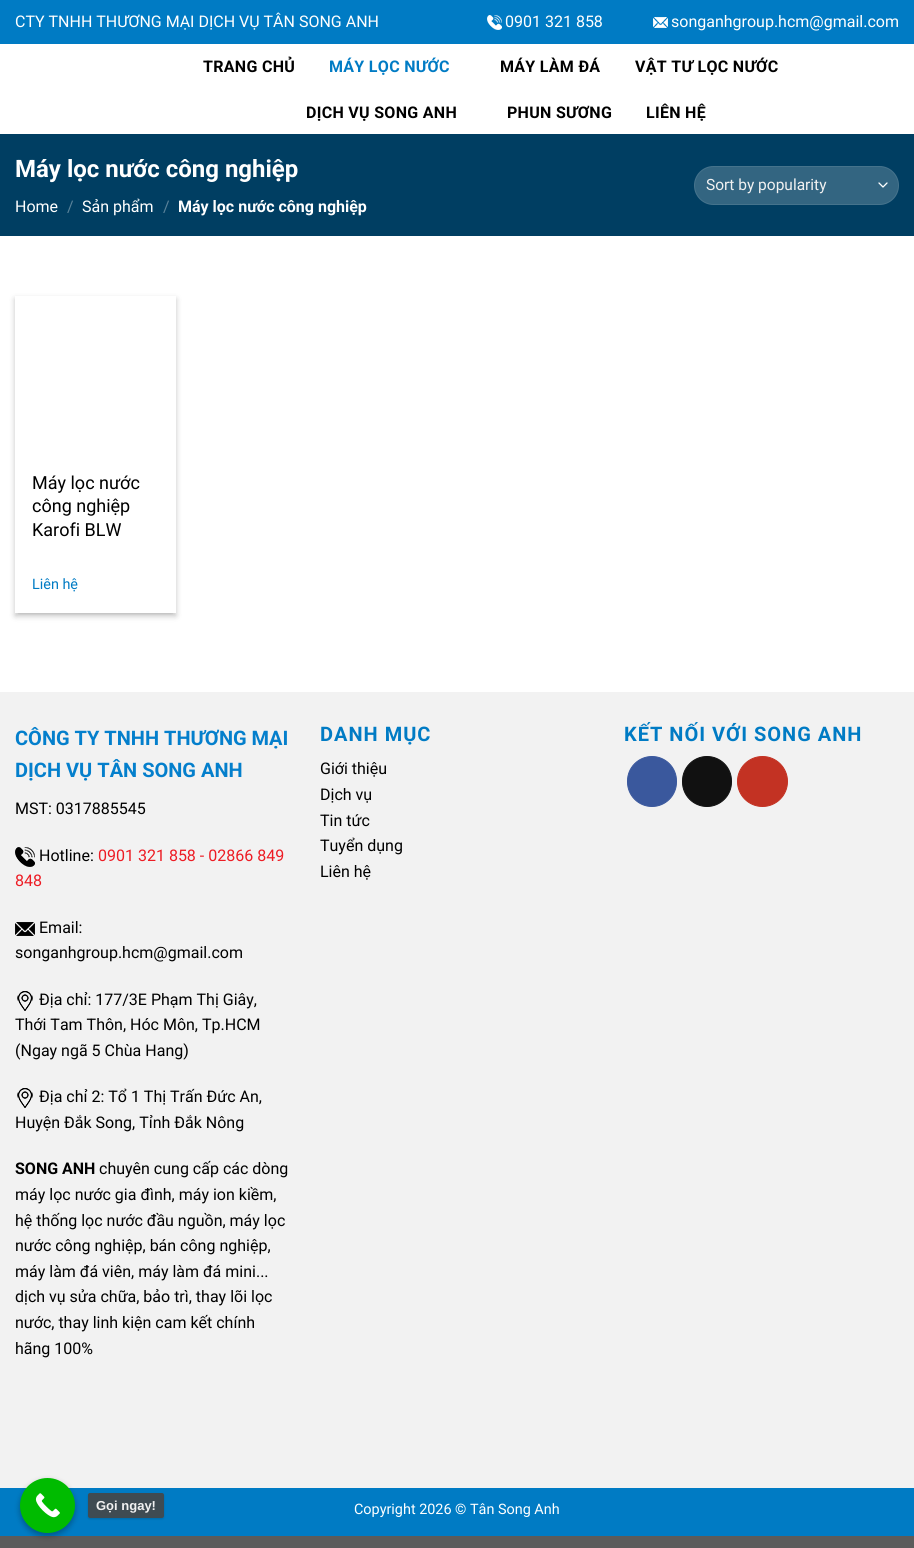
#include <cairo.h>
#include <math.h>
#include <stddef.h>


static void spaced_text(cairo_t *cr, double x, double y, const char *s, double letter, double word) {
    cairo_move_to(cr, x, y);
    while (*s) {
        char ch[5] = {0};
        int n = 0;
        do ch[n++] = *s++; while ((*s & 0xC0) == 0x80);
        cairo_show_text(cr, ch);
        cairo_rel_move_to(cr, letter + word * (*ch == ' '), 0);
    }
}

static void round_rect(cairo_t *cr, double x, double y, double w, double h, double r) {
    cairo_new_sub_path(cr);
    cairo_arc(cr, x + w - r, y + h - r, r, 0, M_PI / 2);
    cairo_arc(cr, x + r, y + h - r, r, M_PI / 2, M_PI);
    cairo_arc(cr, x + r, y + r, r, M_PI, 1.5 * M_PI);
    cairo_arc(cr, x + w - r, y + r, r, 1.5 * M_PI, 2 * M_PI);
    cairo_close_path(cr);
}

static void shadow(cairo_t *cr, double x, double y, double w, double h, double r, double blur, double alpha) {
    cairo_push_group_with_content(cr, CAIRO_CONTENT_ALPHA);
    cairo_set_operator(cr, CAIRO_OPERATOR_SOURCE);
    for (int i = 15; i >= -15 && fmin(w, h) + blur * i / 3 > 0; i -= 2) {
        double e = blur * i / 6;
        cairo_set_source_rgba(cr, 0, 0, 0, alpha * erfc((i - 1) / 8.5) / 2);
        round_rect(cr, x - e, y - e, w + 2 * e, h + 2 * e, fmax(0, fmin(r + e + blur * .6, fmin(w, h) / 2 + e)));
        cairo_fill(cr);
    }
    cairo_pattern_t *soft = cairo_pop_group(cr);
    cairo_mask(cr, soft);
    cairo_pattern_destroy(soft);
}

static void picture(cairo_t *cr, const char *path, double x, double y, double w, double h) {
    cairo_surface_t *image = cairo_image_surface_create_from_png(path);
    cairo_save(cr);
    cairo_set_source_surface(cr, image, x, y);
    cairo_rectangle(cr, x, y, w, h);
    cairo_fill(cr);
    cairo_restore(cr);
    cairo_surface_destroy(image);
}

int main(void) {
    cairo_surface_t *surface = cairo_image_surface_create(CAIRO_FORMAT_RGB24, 914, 1548);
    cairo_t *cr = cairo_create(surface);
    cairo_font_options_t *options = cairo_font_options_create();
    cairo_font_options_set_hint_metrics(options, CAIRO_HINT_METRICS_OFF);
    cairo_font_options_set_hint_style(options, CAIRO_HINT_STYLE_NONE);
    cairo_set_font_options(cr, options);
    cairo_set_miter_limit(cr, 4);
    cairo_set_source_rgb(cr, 0.357, 0.357, 0.357);
    cairo_paint(cr);
    cairo_set_source_rgb(cr, 1, 1, 1);
    cairo_rectangle(cr, 0, 44, 914, 648);
    cairo_fill(cr);
    cairo_set_source_rgb(cr, 0, 0.482, 0.769);
    cairo_rectangle(cr, 0, 0, 914, 44);
    cairo_fill(cr);
    cairo_select_font_face(cr, "Roboto", CAIRO_FONT_SLANT_NORMAL, CAIRO_FONT_WEIGHT_NORMAL);
    cairo_set_font_size(cr, 16);
    cairo_set_source_rgb(cr, 1, 1, 1);
    cairo_move_to(cr, 15, 27);
    cairo_show_text(cr, "CTY TNHH THƯƠNG MẠI DỊCH VỤ TÂN SONG ANH");
    picture(cr, "img1.png", 487, 15, 15, 15);
    cairo_move_to(cr, 505, 27);
    cairo_show_text(cr, "0901 321 858");
    picture(cr, "img2.png", 653, 17, 15, 11);
    cairo_move_to(cr, 671, 27);
    cairo_show_text(cr, "songanhgroup.hcm@gmail.com");
    cairo_select_font_face(cr, "Roboto", CAIRO_FONT_SLANT_NORMAL, CAIRO_FONT_WEIGHT_BOLD);
    cairo_set_source_rgb(cr, 0, 0, 0);
    spaced_text(cr, 203, 72, "TRANG CHỦ", 0.3, 0);
    cairo_set_source_rgb(cr, 0, 0.482, 0.769);
    spaced_text(cr, 329, 72, "MÁY LỌC NƯỚC", 0.3, 0);
    cairo_set_source_rgb(cr, 0, 0, 0);
    spaced_text(cr, 500, 72, "MÁY LÀM ĐÁ", 0.3, 0);
    spaced_text(cr, 635, 72, "VẬT TƯ LỌC NƯỚC", 0.3, 0);
    spaced_text(cr, 306, 118, "DỊCH VỤ SONG ANH", 0.3, 0);
    spaced_text(cr, 507, 118, "PHUN SƯƠNG", 0.3, 0);
    spaced_text(cr, 646, 118, "LIÊN HỆ", 0.3, 0);
    cairo_set_source_rgb(cr, 0, 0.243, 0.384);
    cairo_rectangle(cr, 0, 134, 914, 102);
    cairo_fill(cr);
    cairo_set_font_size(cr, 24);
    cairo_set_source_rgb(cr, 1, 1, 1);
    cairo_move_to(cr, 15, 177);
    cairo_show_text(cr, "Máy lọc nước công nghiệp");
    cairo_select_font_face(cr, "Roboto", CAIRO_FONT_SLANT_NORMAL, CAIRO_FONT_WEIGHT_NORMAL);
    cairo_set_font_size(cr, 16);
    cairo_move_to(cr, 15, 212);
    cairo_show_text(cr, "Home");
    cairo_set_source_rgb(cr, 0.349, 0.51, 0.6);
    cairo_move_to(cr, 67, 212);
    cairo_show_text(cr, "/");
    cairo_set_source_rgb(cr, 1, 1, 1);
    cairo_move_to(cr, 82, 212);
    cairo_show_text(cr, "Sản phẩm");
    cairo_set_source_rgb(cr, 0.349, 0.51, 0.6);
    cairo_move_to(cr, 163, 212);
    cairo_show_text(cr, "/");
    cairo_select_font_face(cr, "Roboto", CAIRO_FONT_SLANT_NORMAL, CAIRO_FONT_WEIGHT_BOLD);
    cairo_set_source_rgb(cr, 1, 1, 1);
    cairo_move_to(cr, 178, 212);
    cairo_show_text(cr, "Máy lọc nước công nghiệp");
    cairo_set_source_rgb(cr, 0.2, 0.396, 0.506);
    round_rect(cr, 694, 166, 205, 39, 19.5);
    cairo_fill(cr);
    cairo_new_path(cr);
    cairo_move_to(cr, 879, 183);
    cairo_line_to(cr, 883, 187);
    cairo_line_to(cr, 887, 183);
    cairo_set_source_rgb(cr, 1, 1, 1);
    cairo_set_line_width(cr, 1.3);
    cairo_set_line_cap(cr, CAIRO_LINE_CAP_ROUND);
    cairo_set_line_join(cr, CAIRO_LINE_JOIN_ROUND);
    cairo_stroke(cr);
    round_rect(cr, 694.5, 166.5, 204, 38, 19);
    cairo_set_source_rgba(cr, 1, 1, 1, 0.09);
    cairo_set_line_width(cr, 1);
    cairo_set_line_cap(cr, CAIRO_LINE_CAP_BUTT);
    cairo_set_line_join(cr, CAIRO_LINE_JOIN_MITER);
    cairo_stroke(cr);
    cairo_select_font_face(cr, "Roboto", CAIRO_FONT_SLANT_NORMAL, CAIRO_FONT_WEIGHT_NORMAL);
    cairo_set_font_size(cr, 15.5);
    cairo_set_source_rgb(cr, 0.945, 0.945, 0.945);
    cairo_move_to(cr, 706, 190);
    cairo_show_text(cr, "Sort by popularity");
    cairo_save(cr);
    cairo_set_fill_rule(cr, CAIRO_FILL_RULE_EVEN_ODD);
    cairo_new_path(cr);
    cairo_move_to(cr, 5, 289);
    cairo_line_to(cr, 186, 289);
    cairo_line_to(cr, 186, 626);
    cairo_line_to(cr, 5, 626);
    cairo_close_path(cr);
    cairo_move_to(cr, 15, 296);
    cairo_line_to(cr, 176, 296);
    cairo_line_to(cr, 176, 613);
    cairo_line_to(cr, 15, 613);
    cairo_close_path(cr);
    cairo_clip(cr);
    cairo_set_source_rgb(cr, 0, 0, 0);
    shadow(cr, 15, 299, 161, 317, 0, 3, 0.23);
    cairo_restore(cr);
    cairo_save(cr);
    cairo_rectangle(cr, 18, 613, 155, 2);
    cairo_clip(cr);
    cairo_set_source_rgb(cr, 0, 0, 0);
    shadow(cr, 19, 303, 153, 309, 0, 3, 0.16);
    cairo_restore(cr);
    cairo_set_font_size(cr, 18);
    cairo_set_source_rgb(cr, 0, 0, 0);
    cairo_move_to(cr, 32, 489);
    cairo_show_text(cr, "Máy lọc nước");
    cairo_move_to(cr, 32, 512);
    cairo_show_text(cr, "công nghiệp");
    cairo_move_to(cr, 32, 536);
    cairo_show_text(cr, "Karofi BLW");
    cairo_set_font_size(cr, 14.4);
    cairo_set_source_rgb(cr, 0, 0.482, 0.769);
    cairo_move_to(cr, 32, 589);
    cairo_show_text(cr, "Liên hệ");
    cairo_set_source_rgb(cr, 0.949, 0.949, 0.949);
    cairo_rectangle(cr, 0, 692, 914, 796);
    cairo_fill(cr);
    cairo_select_font_face(cr, "Roboto", CAIRO_FONT_SLANT_NORMAL, CAIRO_FONT_WEIGHT_BOLD);
    cairo_set_font_size(cr, 20);
    cairo_set_source_rgb(cr, 0.016, 0.498, 0.8);
    cairo_move_to(cr, 15, 745);
    cairo_show_text(cr, "CÔNG TY TNHH THƯƠNG MẠI");
    cairo_move_to(cr, 15, 777);
    cairo_show_text(cr, "DỊCH VỤ TÂN SONG ANH");
    cairo_select_font_face(cr, "Roboto", CAIRO_FONT_SLANT_NORMAL, CAIRO_FONT_WEIGHT_NORMAL);
    cairo_set_font_size(cr, 16);
    cairo_set_source_rgb(cr, 0, 0, 0);
    cairo_move_to(cr, 15, 814);
    cairo_show_text(cr, "MST: 0317885545");
    picture(cr, "img3.png", 15, 847, 20, 20);
    cairo_move_to(cr, 39, 861);
    cairo_show_text(cr, "Hotline:");
    cairo_set_source_rgb(cr, 0.929, 0.11, 0.141);
    cairo_move_to(cr, 98, 861);
    cairo_show_text(cr, "0901 321 858 - 02866 849");
    cairo_move_to(cr, 15, 886);
    cairo_show_text(cr, "848");
    picture(cr, "img4.png", 15, 922, 20, 14);
    cairo_set_source_rgb(cr, 0, 0, 0);
    cairo_move_to(cr, 39, 933);
    cairo_show_text(cr, "Email:");
    cairo_move_to(cr, 15, 958);
    cairo_show_text(cr, "songanhgroup.hcm@gmail.com");
    picture(cr, "img5.png", 17, 991, 16, 20);
    cairo_move_to(cr, 39, 1005);
    cairo_show_text(cr, "Địa chỉ: 177/3E Phạm Thị Giây,");
    cairo_move_to(cr, 15, 1030);
    cairo_show_text(cr, "Thới Tam Thôn, Hóc Môn, Tp.HCM");
    cairo_move_to(cr, 15, 1056);
    cairo_show_text(cr, "(Ngay ngã 5 Chùa Hang)");
    picture(cr, "img5.png", 17, 1088, 16, 20);
    cairo_move_to(cr, 39, 1102);
    cairo_show_text(cr, "Địa chỉ 2: Tổ 1 Thị Trấn Đức An,");
    cairo_move_to(cr, 15, 1128);
    cairo_show_text(cr, "Huyện Đắk Song, Tỉnh Đắk Nông");
    cairo_select_font_face(cr, "Roboto", CAIRO_FONT_SLANT_NORMAL, CAIRO_FONT_WEIGHT_BOLD);
    cairo_move_to(cr, 15, 1174);
    cairo_show_text(cr, "SONG ANH");
    cairo_select_font_face(cr, "Roboto", CAIRO_FONT_SLANT_NORMAL, CAIRO_FONT_WEIGHT_NORMAL);
    cairo_move_to(cr, 99, 1174);
    cairo_show_text(cr, "chuyên cung cấp các dòng");
    cairo_move_to(cr, 15, 1200);
    cairo_show_text(cr, "máy lọc nước gia đình, máy ion kiềm,");
    cairo_move_to(cr, 15, 1226);
    cairo_show_text(cr, "hệ thống lọc nước đầu nguồn, máy lọc");
    cairo_move_to(cr, 15, 1251);
    cairo_show_text(cr, "nước công nghiệp, bán công nghiệp,");
    cairo_move_to(cr, 15, 1277);
    cairo_show_text(cr, "máy làm đá viên, máy làm đá mini...");
    cairo_move_to(cr, 15, 1302);
    cairo_show_text(cr, "dịch vụ sửa chữa, bảo trì, thay lõi lọc");
    cairo_move_to(cr, 15, 1328);
    cairo_show_text(cr, "nước, thay linh kiện cam kết chính");
    cairo_move_to(cr, 15, 1354);
    cairo_show_text(cr, "hãng 100%");
    cairo_select_font_face(cr, "Roboto", CAIRO_FONT_SLANT_NORMAL, CAIRO_FONT_WEIGHT_BOLD);
    cairo_set_font_size(cr, 20);
    cairo_set_source_rgb(cr, 0, 0.482, 0.769);
    spaced_text(cr, 320, 741, "DANH MỤC", 1, 0);
    cairo_select_font_face(cr, "Roboto", CAIRO_FONT_SLANT_NORMAL, CAIRO_FONT_WEIGHT_NORMAL);
    cairo_set_font_size(cr, 16);
    cairo_set_source_rgb(cr, 0, 0, 0);
    cairo_move_to(cr, 320, 774);
    cairo_show_text(cr, "Giới thiệu");
    cairo_move_to(cr, 320, 800);
    cairo_show_text(cr, "Dịch vụ");
    cairo_move_to(cr, 320, 826);
    cairo_show_text(cr, "Tin tức");
    cairo_move_to(cr, 320, 851);
    cairo_show_text(cr, "Tuyển dụng");
    cairo_move_to(cr, 320, 877);
    cairo_show_text(cr, "Liên hệ");
    cairo_select_font_face(cr, "Roboto", CAIRO_FONT_SLANT_NORMAL, CAIRO_FONT_WEIGHT_BOLD);
    cairo_set_font_size(cr, 20);
    cairo_set_source_rgb(cr, 0, 0.482, 0.769);
    spaced_text(cr, 624, 741, "KẾT NỐI VỚI SONG ANH", 1, 0);
    cairo_set_source_rgb(cr, 0.227, 0.345, 0.616);
    round_rect(cr, 627.5, 756.5, 49, 50, 24.5);
    cairo_fill_preserve(cr);
    cairo_stroke(cr);
    cairo_set_source_rgb(cr, 0.067, 0.067, 0.067);
    round_rect(cr, 682.5, 756.5, 49, 50, 24.5);
    cairo_fill_preserve(cr);
    cairo_stroke(cr);
    cairo_set_source_rgb(cr, 0.765, 0.196, 0.137);
    cairo_arc(cr, 762.5, 781.5, 25, 0, 2 * M_PI);
    cairo_fill_preserve(cr);
    cairo_stroke(cr);
    cairo_set_source_rgb(cr, 0, 0.482, 0.769);
    cairo_rectangle(cr, 0, 1488, 914, 48);
    cairo_fill(cr);
    cairo_select_font_face(cr, "Roboto", CAIRO_FONT_SLANT_NORMAL, CAIRO_FONT_WEIGHT_NORMAL);
    cairo_set_font_size(cr, 14.4);
    cairo_set_source_rgb(cr, 1, 1, 1);
    cairo_move_to(cr, 354, 1514);
    cairo_show_text(cr, "Copyright 2026 © Tân Song Anh");
    cairo_set_source_rgb(cr, 0, 0, 0);
    shadow(cr, 20, 1481, 55, 55, 27.5, 3, 0.3);
    cairo_set_source_rgb(cr, 0, 0.733, 0);
    cairo_arc(cr, 47.5, 1505.5, 27.5, 0, 2 * M_PI);
    cairo_fill(cr);
    picture(cr, "img6.png", 35, 1493, 25, 25);
    cairo_save(cr);
    cairo_set_fill_rule(cr, CAIRO_FILL_RULE_EVEN_ODD);
    cairo_new_path(cr);
    cairo_move_to(cr, 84, 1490);
    cairo_line_to(cr, 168, 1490);
    cairo_line_to(cr, 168, 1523);
    cairo_line_to(cr, 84, 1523);
    cairo_close_path(cr);
    cairo_move_to(cr, 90, 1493);
    cairo_line_to(cr, 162, 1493);
    cairo_curve_to(cr, 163, 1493, 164, 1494, 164, 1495);
    cairo_line_to(cr, 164, 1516);
    cairo_curve_to(cr, 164, 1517, 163, 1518, 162, 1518);
    cairo_line_to(cr, 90, 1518);
    cairo_curve_to(cr, 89, 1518, 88, 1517, 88, 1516);
    cairo_line_to(cr, 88, 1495);
    cairo_curve_to(cr, 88, 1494, 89, 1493, 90, 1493);
    cairo_close_path(cr);
    cairo_clip(cr);
    cairo_set_source_rgb(cr, 0, 0, 0);
    shadow(cr, 88, 1494, 76, 25, 2, 1, 0.15);
    cairo_restore(cr);
    cairo_set_source_rgba(cr, 0.275, 0.275, 0.275, 0.9);
    round_rect(cr, 88, 1493, 76, 25, 2);
    cairo_fill(cr);
    cairo_select_font_face(cr, "Liberation Sans", CAIRO_FONT_SLANT_NORMAL, CAIRO_FONT_WEIGHT_BOLD);
    cairo_set_font_size(cr, 13);
    cairo_set_source_rgb(cr, 0.945, 0.945, 0.945);
    cairo_move_to(cr, 96, 1510);
    cairo_show_text(cr, "Gọi ngay!");
    cairo_surface_write_to_png(surface, "page.png");
    cairo_font_options_destroy(options);
    cairo_destroy(cr);
    cairo_surface_destroy(surface);
    return 0;
}
